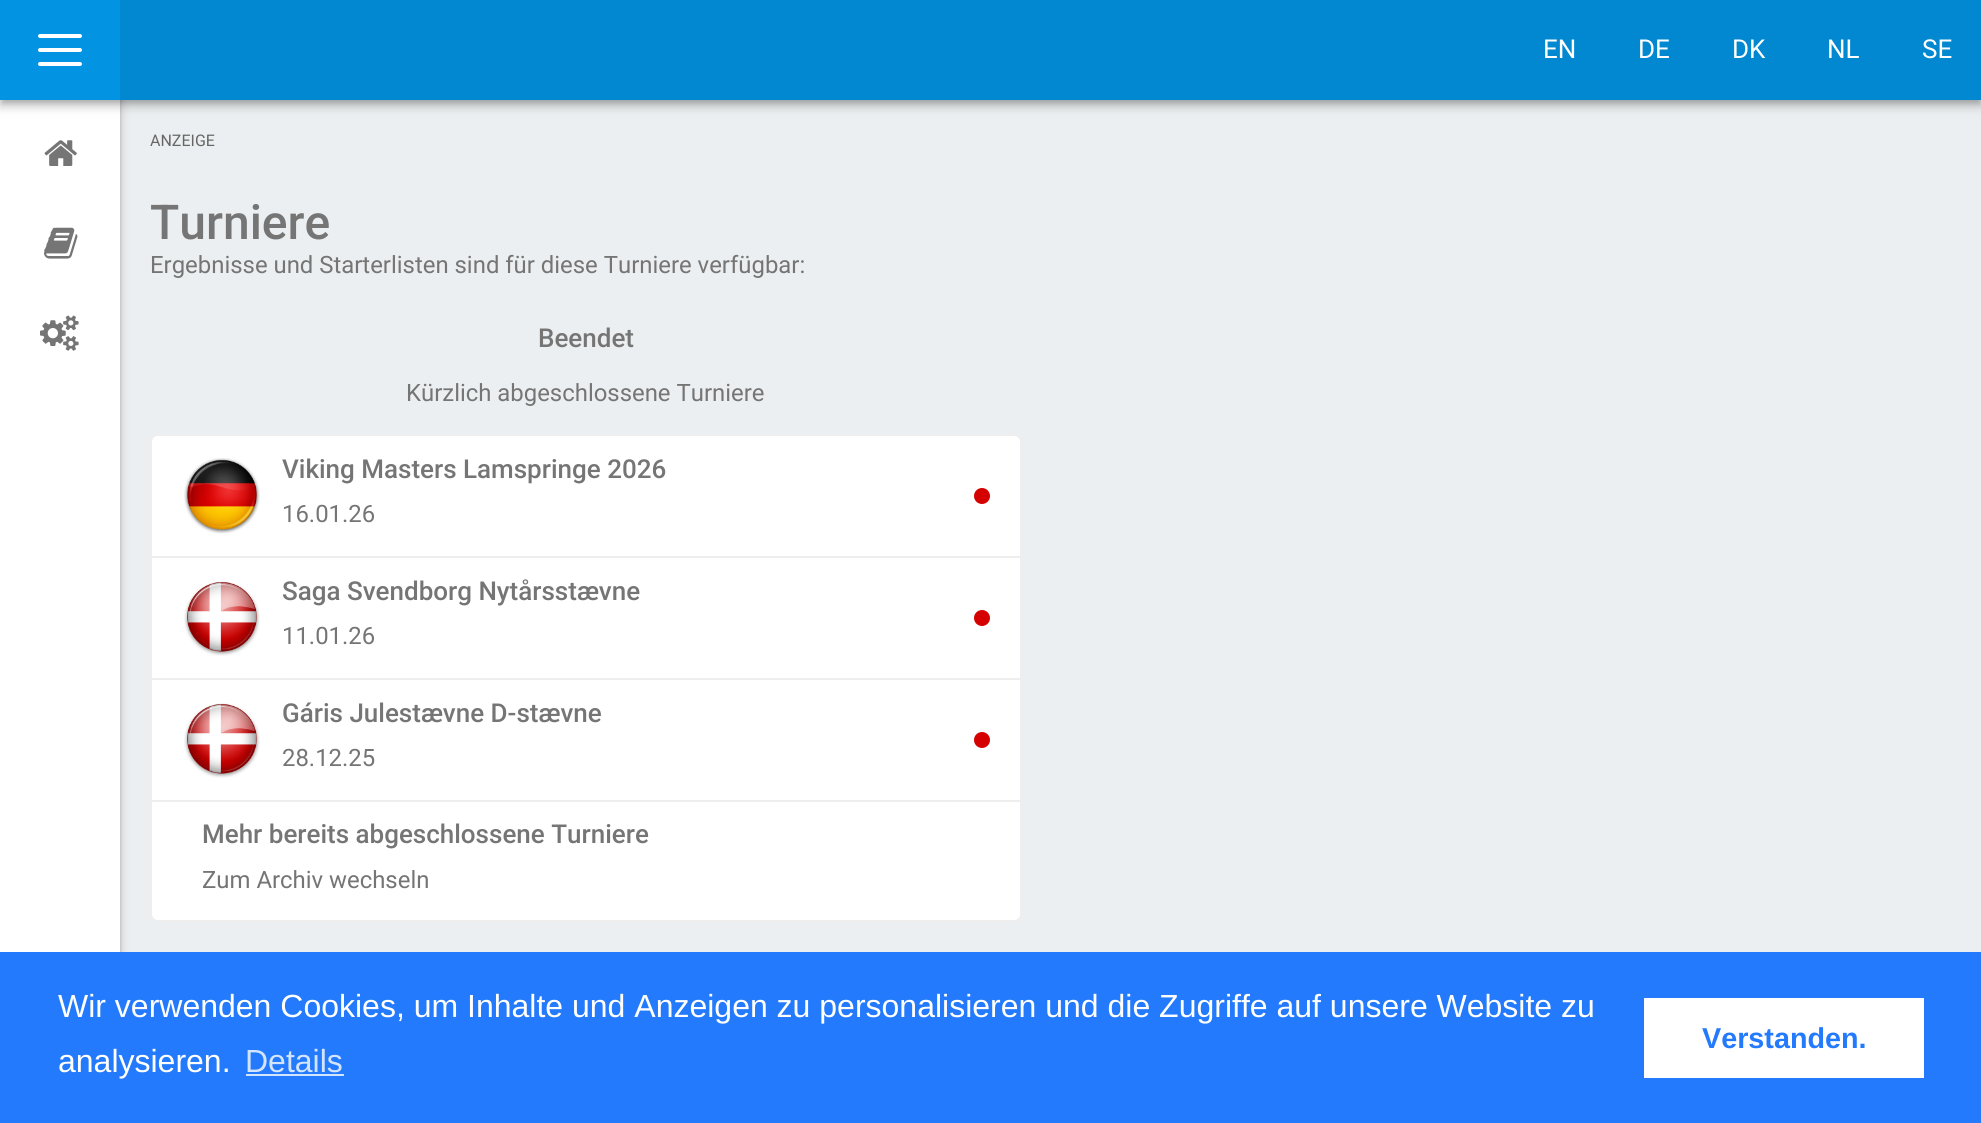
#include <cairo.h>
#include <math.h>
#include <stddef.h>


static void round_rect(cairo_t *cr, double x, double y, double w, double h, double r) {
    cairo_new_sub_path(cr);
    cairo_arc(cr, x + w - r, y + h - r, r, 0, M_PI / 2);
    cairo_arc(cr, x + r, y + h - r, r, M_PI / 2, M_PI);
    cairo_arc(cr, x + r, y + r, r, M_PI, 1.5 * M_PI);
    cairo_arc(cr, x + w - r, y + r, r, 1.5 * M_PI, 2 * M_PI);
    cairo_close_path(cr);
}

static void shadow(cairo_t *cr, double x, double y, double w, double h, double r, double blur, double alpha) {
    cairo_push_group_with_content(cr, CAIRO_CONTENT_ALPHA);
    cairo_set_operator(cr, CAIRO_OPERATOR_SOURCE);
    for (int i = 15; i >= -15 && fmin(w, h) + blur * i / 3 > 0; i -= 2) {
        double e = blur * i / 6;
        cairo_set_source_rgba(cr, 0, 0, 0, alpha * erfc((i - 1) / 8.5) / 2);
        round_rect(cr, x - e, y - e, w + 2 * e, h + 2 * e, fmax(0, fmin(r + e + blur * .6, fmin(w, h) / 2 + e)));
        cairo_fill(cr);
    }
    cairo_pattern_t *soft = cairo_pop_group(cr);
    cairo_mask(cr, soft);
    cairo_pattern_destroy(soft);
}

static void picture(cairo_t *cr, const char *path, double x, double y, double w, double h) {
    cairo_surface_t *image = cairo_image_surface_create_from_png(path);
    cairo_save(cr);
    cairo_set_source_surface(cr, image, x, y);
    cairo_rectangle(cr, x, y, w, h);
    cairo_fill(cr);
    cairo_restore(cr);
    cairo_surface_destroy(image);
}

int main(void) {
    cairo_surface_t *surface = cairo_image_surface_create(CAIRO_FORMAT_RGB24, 1981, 1123);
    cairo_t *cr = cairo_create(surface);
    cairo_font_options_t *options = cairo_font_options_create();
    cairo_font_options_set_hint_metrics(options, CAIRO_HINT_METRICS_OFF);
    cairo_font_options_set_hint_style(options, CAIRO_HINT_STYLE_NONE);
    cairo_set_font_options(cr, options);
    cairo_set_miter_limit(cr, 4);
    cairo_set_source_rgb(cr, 0.925, 0.937, 0.945);
    cairo_paint(cr);
    cairo_set_source_rgb(cr, 0, 0, 0);
    shadow(cr, 0, 2, 120, 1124, 0, 5, 0.2);
    shadow(cr, 0, 4, 120, 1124, 0, 2, 0.14);
    cairo_set_source_rgb(cr, 1, 1, 1);
    cairo_rectangle(cr, 0, 100, 120, 852);
    cairo_fill(cr);
    cairo_set_source_rgb(cr, 0, 0, 0);
    shadow(cr, 0, 2, 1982, 100, 0, 8, 0.2);
    shadow(cr, 4, 10, 1974, 92, 0, 3, 0.12);
    shadow(cr, 0, 6, 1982, 100, 0, 4, 0.14);
    cairo_set_source_rgb(cr, 0.008, 0.533, 0.82);
    cairo_rectangle(cr, 120, 0, 1861, 100);
    cairo_fill(cr);
    cairo_set_source_rgb(cr, 0.008, 0.58, 0.89);
    cairo_rectangle(cr, 0, 0, 120, 100);
    cairo_fill(cr);
    cairo_set_source_rgb(cr, 1, 1, 1);
    round_rect(cr, 38, 34, 44, 4, 2);
    cairo_fill(cr);
    round_rect(cr, 38, 48, 44, 4, 2);
    cairo_fill(cr);
    round_rect(cr, 38, 62, 44, 4, 2);
    cairo_fill(cr);
    cairo_select_font_face(cr, "Roboto", CAIRO_FONT_SLANT_NORMAL, CAIRO_FONT_WEIGHT_NORMAL);
    cairo_set_font_size(cr, 26);
    cairo_move_to(cr, 1543, 58);
    cairo_show_text(cr, "EN");
    cairo_move_to(cr, 1638, 58);
    cairo_show_text(cr, "DE");
    cairo_move_to(cr, 1732, 58);
    cairo_show_text(cr, "DK");
    cairo_move_to(cr, 1827, 58);
    cairo_show_text(cr, "NL");
    cairo_move_to(cr, 1922, 58);
    cairo_show_text(cr, "SE");
    picture(cr, "img1.png", 44, 140, 33, 26);
    picture(cr, "img2.png", 44, 227, 34, 32);
    picture(cr, "img3.png", 40, 315, 39, 36);
    cairo_set_font_size(cr, 16);
    cairo_set_source_rgb(cr, 0.4, 0.4, 0.4);
    cairo_move_to(cr, 150, 146);
    cairo_show_text(cr, "ANZEIGE");
    cairo_select_font_face(cr, "Roboto Medium", CAIRO_FONT_SLANT_NORMAL, CAIRO_FONT_WEIGHT_NORMAL);
    cairo_set_font_size(cr, 48);
    cairo_set_source_rgb(cr, 0.459, 0.459, 0.459);
    cairo_move_to(cr, 150, 239);
    cairo_show_text(cr, "Turniere");
    cairo_select_font_face(cr, "Roboto", CAIRO_FONT_SLANT_NORMAL, CAIRO_FONT_WEIGHT_NORMAL);
    cairo_set_font_size(cr, 23.9);
    cairo_move_to(cr, 150, 273);
    cairo_show_text(cr, "Ergebnisse und Starterlisten sind für diese Turniere verfügbar:");
    cairo_select_font_face(cr, "Roboto Medium", CAIRO_FONT_SLANT_NORMAL, CAIRO_FONT_WEIGHT_NORMAL);
    cairo_set_font_size(cr, 26);
    cairo_move_to(cr, 538, 347);
    cairo_show_text(cr, "Beendet");
    cairo_select_font_face(cr, "Roboto", CAIRO_FONT_SLANT_NORMAL, CAIRO_FONT_WEIGHT_NORMAL);
    cairo_set_font_size(cr, 23.9);
    cairo_move_to(cr, 406, 401);
    cairo_show_text(cr, "Kürzlich abgeschlossene Turniere");
    cairo_set_source_rgb(cr, 1, 1, 1);
    cairo_new_path(cr);
    cairo_move_to(cr, 158, 435);
    cairo_line_to(cr, 1014, 435);
    cairo_curve_to(cr, 1018, 435, 1021, 438, 1021, 442);
    cairo_line_to(cr, 1021, 557);
    cairo_line_to(cr, 151, 557);
    cairo_line_to(cr, 151, 442);
    cairo_curve_to(cr, 151, 438, 154, 435, 158, 435);
    cairo_close_path(cr);
    cairo_fill_preserve(cr);
    cairo_set_source_rgb(cr, 0.933, 0.933, 0.933);
    cairo_stroke(cr);
    picture(cr, "img4.png", 184, 458, 76, 76);
    cairo_select_font_face(cr, "Roboto Medium", CAIRO_FONT_SLANT_NORMAL, CAIRO_FONT_WEIGHT_NORMAL);
    cairo_set_font_size(cr, 26);
    cairo_set_source_rgb(cr, 0.459, 0.459, 0.459);
    cairo_move_to(cr, 282, 478);
    cairo_show_text(cr, "Viking Masters Lamspringe 2026");
    cairo_select_font_face(cr, "Roboto", CAIRO_FONT_SLANT_NORMAL, CAIRO_FONT_WEIGHT_NORMAL);
    cairo_set_font_size(cr, 23.9);
    cairo_move_to(cr, 282, 522);
    cairo_show_text(cr, "16.01.26");
    cairo_set_source_rgb(cr, 0.835, 0, 0);
    cairo_new_path(cr);
    cairo_arc(cr, 982, 496, 8, 0, 2 * M_PI);
    cairo_fill(cr);
    cairo_set_source_rgb(cr, 1, 1, 1);
    cairo_rectangle(cr, 151, 557, 870, 122);
    cairo_fill_preserve(cr);
    cairo_set_source_rgb(cr, 0.933, 0.933, 0.933);
    cairo_stroke(cr);
    picture(cr, "img5.png", 184, 581, 76, 75);
    cairo_select_font_face(cr, "Roboto Medium", CAIRO_FONT_SLANT_NORMAL, CAIRO_FONT_WEIGHT_NORMAL);
    cairo_set_font_size(cr, 26);
    cairo_set_source_rgb(cr, 0.459, 0.459, 0.459);
    cairo_move_to(cr, 282, 600);
    cairo_show_text(cr, "Saga Svendborg Nytårsstævne");
    cairo_select_font_face(cr, "Roboto", CAIRO_FONT_SLANT_NORMAL, CAIRO_FONT_WEIGHT_NORMAL);
    cairo_set_font_size(cr, 23.9);
    cairo_move_to(cr, 282, 644);
    cairo_show_text(cr, "11.01.26");
    cairo_set_source_rgb(cr, 0.835, 0, 0);
    cairo_new_path(cr);
    cairo_arc(cr, 982, 618, 8, 0, 2 * M_PI);
    cairo_fill(cr);
    cairo_set_source_rgb(cr, 1, 1, 1);
    cairo_rectangle(cr, 151, 679, 870, 122);
    cairo_fill_preserve(cr);
    cairo_set_source_rgb(cr, 0.933, 0.933, 0.933);
    cairo_stroke(cr);
    picture(cr, "img5.png", 184, 703, 76, 75);
    cairo_select_font_face(cr, "Roboto Medium", CAIRO_FONT_SLANT_NORMAL, CAIRO_FONT_WEIGHT_NORMAL);
    cairo_set_font_size(cr, 26);
    cairo_set_source_rgb(cr, 0.459, 0.459, 0.459);
    cairo_move_to(cr, 282, 722);
    cairo_show_text(cr, "Gáris Julestævne D-stævne");
    cairo_select_font_face(cr, "Roboto", CAIRO_FONT_SLANT_NORMAL, CAIRO_FONT_WEIGHT_NORMAL);
    cairo_set_font_size(cr, 23.9);
    cairo_move_to(cr, 282, 766);
    cairo_show_text(cr, "28.12.25");
    cairo_set_source_rgb(cr, 0.835, 0, 0);
    cairo_new_path(cr);
    cairo_arc(cr, 982, 740, 8, 0, 2 * M_PI);
    cairo_fill(cr);
    cairo_set_source_rgb(cr, 1, 1, 1);
    cairo_new_path(cr);
    cairo_move_to(cr, 151, 801);
    cairo_line_to(cr, 1021, 801);
    cairo_line_to(cr, 1021, 914);
    cairo_curve_to(cr, 1021, 918, 1018, 921, 1014, 921);
    cairo_line_to(cr, 158, 921);
    cairo_curve_to(cr, 154, 921, 151, 918, 151, 914);
    cairo_close_path(cr);
    cairo_fill_preserve(cr);
    cairo_set_source_rgb(cr, 0.933, 0.933, 0.933);
    cairo_stroke(cr);
    cairo_select_font_face(cr, "Roboto Medium", CAIRO_FONT_SLANT_NORMAL, CAIRO_FONT_WEIGHT_NORMAL);
    cairo_set_font_size(cr, 26);
    cairo_set_source_rgb(cr, 0.459, 0.459, 0.459);
    cairo_move_to(cr, 202, 843);
    cairo_show_text(cr, "Mehr bereits abgeschlossene Turniere");
    cairo_select_font_face(cr, "Roboto", CAIRO_FONT_SLANT_NORMAL, CAIRO_FONT_WEIGHT_NORMAL);
    cairo_set_font_size(cr, 23.9);
    cairo_move_to(cr, 202, 888);
    cairo_show_text(cr, "Zum Archiv wechseln");
    cairo_set_source_rgb(cr, 0.137, 0.478, 0.988);
    cairo_rectangle(cr, 0, 952, 1981, 171);
    cairo_fill(cr);
    cairo_select_font_face(cr, "Liberation Sans", CAIRO_FONT_SLANT_NORMAL, CAIRO_FONT_WEIGHT_NORMAL);
    cairo_set_font_size(cr, 32);
    cairo_set_source_rgb(cr, 1, 1, 1);
    cairo_move_to(cr, 58, 1017);
    cairo_show_text(cr, "Wir verwenden Cookies, um Inhalte und Anzeigen zu personalisieren und die Zugriffe auf unsere Website zu");
    cairo_move_to(cr, 58, 1072);
    cairo_show_text(cr, "analysieren.");
    cairo_set_source_rgb(cr, 0.827, 0.894, 0.996);
    cairo_move_to(cr, 245, 1072);
    cairo_show_text(cr, "Details");
    cairo_rectangle(cr, 246, 1074, 98, 2);
    cairo_fill(cr);
    cairo_set_source_rgb(cr, 1, 1, 1);
    cairo_rectangle(cr, 1644, 998, 280, 80);
    cairo_fill(cr);
    cairo_select_font_face(cr, "Liberation Sans", CAIRO_FONT_SLANT_NORMAL, CAIRO_FONT_WEIGHT_BOLD);
    cairo_set_font_size(cr, 28.75);
    cairo_set_source_rgb(cr, 0.137, 0.478, 0.988);
    cairo_move_to(cr, 1702, 1048);
    cairo_show_text(cr, "Verstanden.");
    cairo_surface_write_to_png(surface, "page.png");
    cairo_font_options_destroy(options);
    cairo_destroy(cr);
    cairo_surface_destroy(surface);
    return 0;
}
